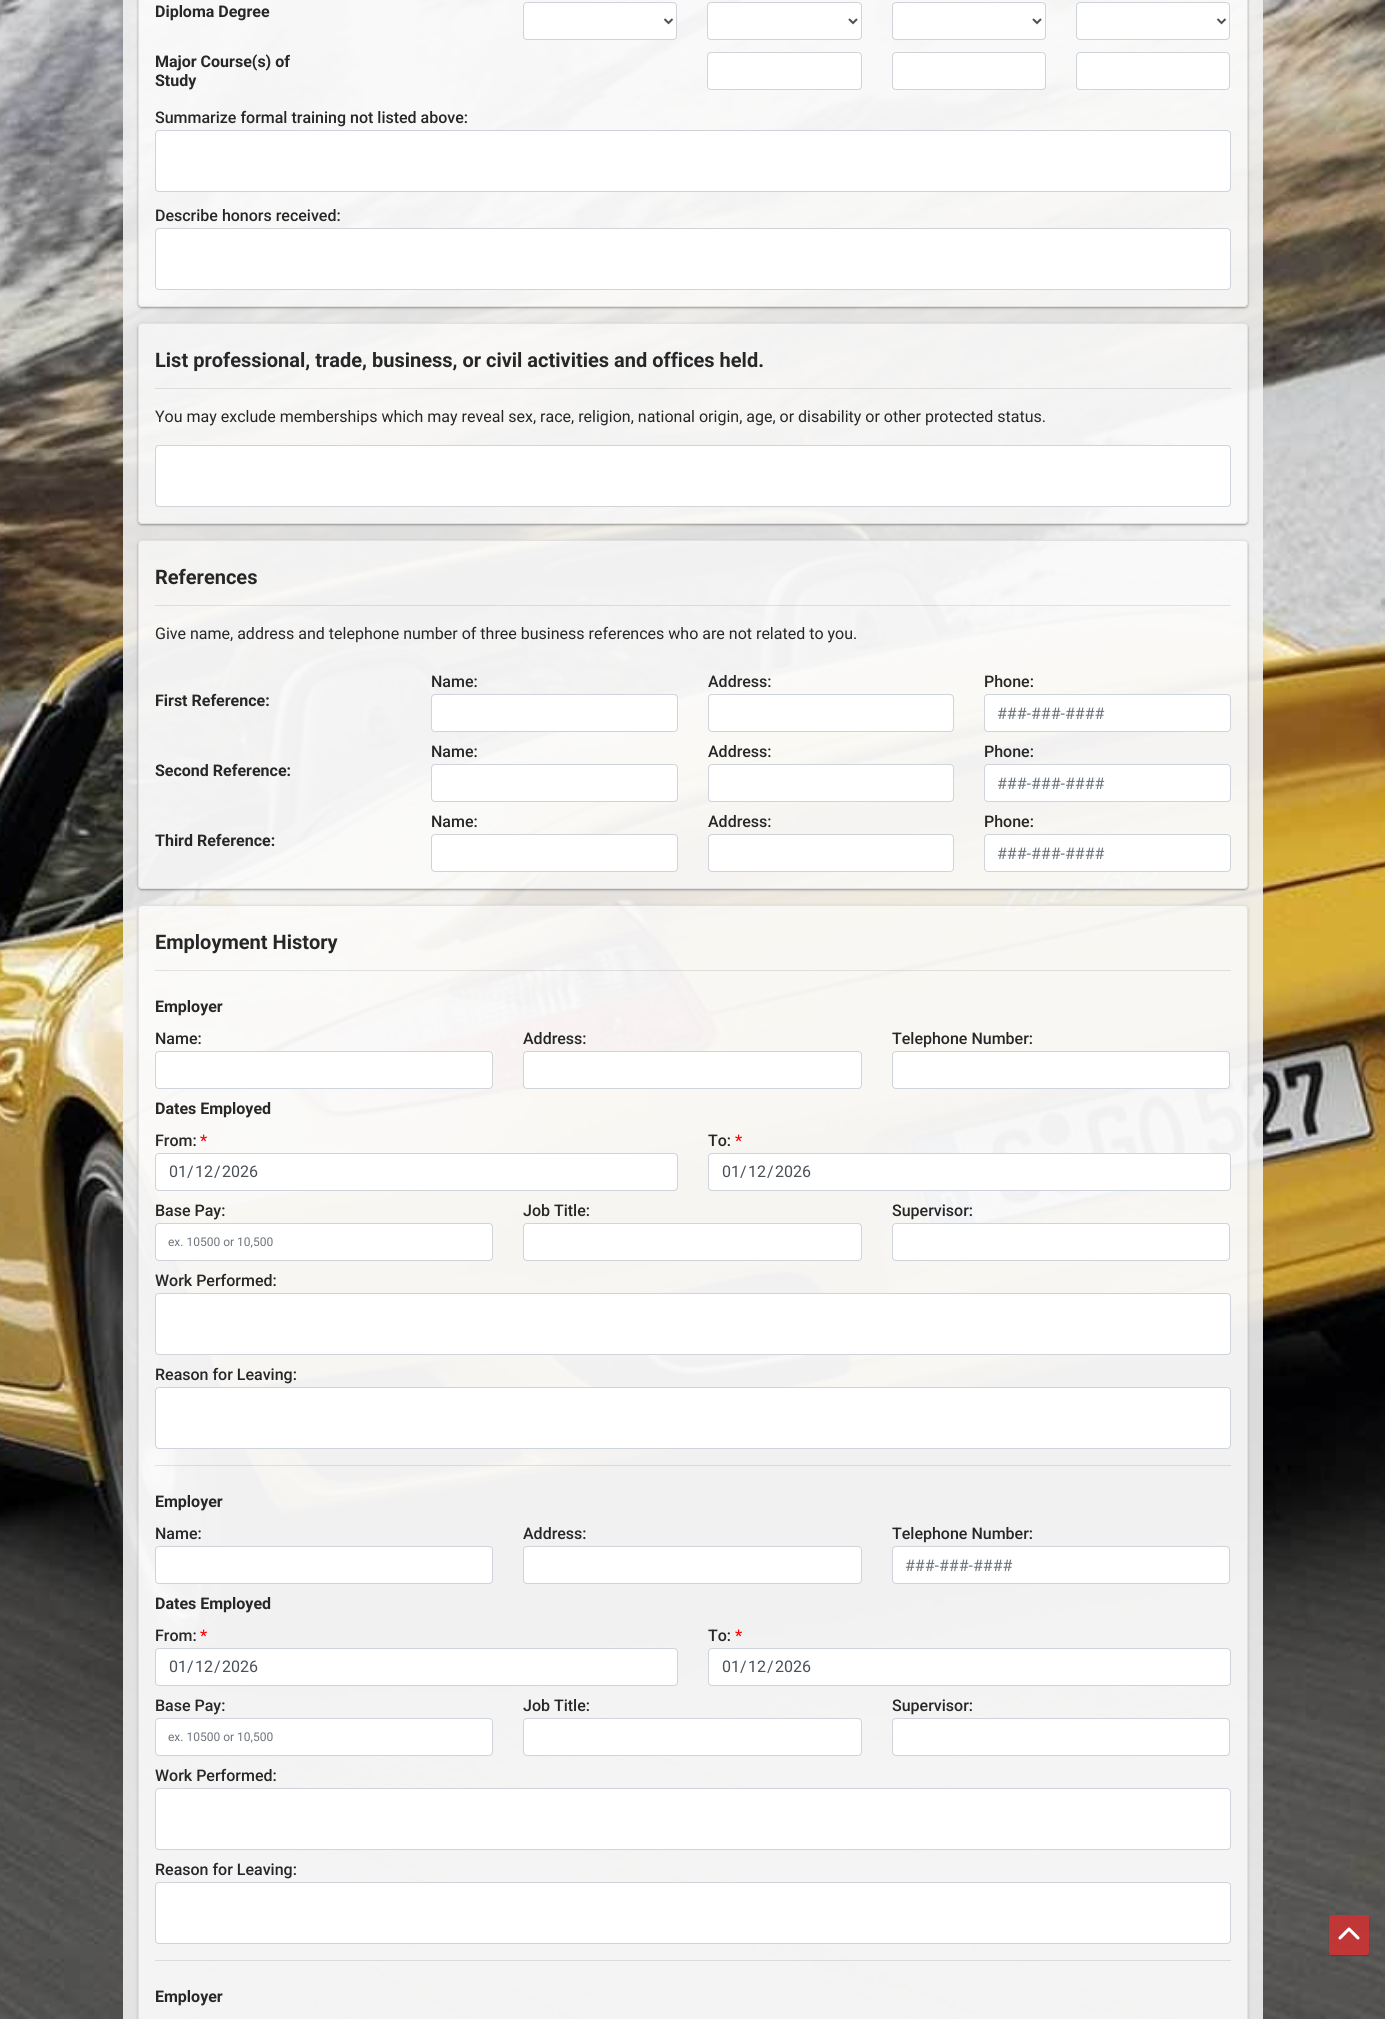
#include <cairo.h>
#include <math.h>
#include <stddef.h>


static void round_rect(cairo_t *cr, double x, double y, double w, double h, double r) {
    cairo_new_sub_path(cr);
    cairo_arc(cr, x + w - r, y + h - r, r, 0, M_PI / 2);
    cairo_arc(cr, x + r, y + h - r, r, M_PI / 2, M_PI);
    cairo_arc(cr, x + r, y + r, r, M_PI, 1.5 * M_PI);
    cairo_arc(cr, x + w - r, y + r, r, 1.5 * M_PI, 2 * M_PI);
    cairo_close_path(cr);
}

static void shadow(cairo_t *cr, double x, double y, double w, double h, double r, double blur, double alpha) {
    cairo_push_group_with_content(cr, CAIRO_CONTENT_ALPHA);
    cairo_set_operator(cr, CAIRO_OPERATOR_SOURCE);
    for (int i = 15; i >= -15 && fmin(w, h) + blur * i / 3 > 0; i -= 2) {
        double e = blur * i / 6;
        cairo_set_source_rgba(cr, 0, 0, 0, alpha * erfc((i - 1) / 8.5) / 2);
        round_rect(cr, x - e, y - e, w + 2 * e, h + 2 * e, fmax(0, fmin(r + e + blur * .6, fmin(w, h) / 2 + e)));
        cairo_fill(cr);
    }
    cairo_pattern_t *soft = cairo_pop_group(cr);
    cairo_mask(cr, soft);
    cairo_pattern_destroy(soft);
}

static void picture(cairo_t *cr, const char *path, double x, double y, double w, double h) {
    cairo_surface_t *image = cairo_image_surface_create_from_png(path);
    cairo_save(cr);
    cairo_set_source_surface(cr, image, x, y);
    cairo_rectangle(cr, x, y, w, h);
    cairo_fill(cr);
    cairo_restore(cr);
    cairo_surface_destroy(image);
}

int main(void) {
    cairo_surface_t *surface = cairo_image_surface_create(CAIRO_FORMAT_RGB24, 1385, 2019);
    cairo_t *cr = cairo_create(surface);
    cairo_font_options_t *options = cairo_font_options_create();
    cairo_font_options_set_hint_metrics(options, CAIRO_HINT_METRICS_OFF);
    cairo_font_options_set_hint_style(options, CAIRO_HINT_STYLE_NONE);
    cairo_set_font_options(cr, options);
    cairo_set_miter_limit(cr, 4);
    cairo_set_source_rgb(cr, 1, 1, 1);
    cairo_paint(cr);
    picture(cr, "img1.png", 0, 0, 1385, 2019);
    cairo_set_source_rgba(cr, 0.953, 0.953, 0.953, 0.9);
    cairo_rectangle(cr, 123, 0, 1140, 2019);
    cairo_fill(cr);
    cairo_save(cr);
    cairo_set_fill_rule(cr, CAIRO_FILL_RULE_EVEN_ODD);
    cairo_new_path(cr);
    cairo_move_to(cr, 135, 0);
    cairo_line_to(cr, 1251, 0);
    cairo_line_to(cr, 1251, 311);
    cairo_line_to(cr, 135, 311);
    cairo_close_path(cr);
    cairo_move_to(cr, 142, -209);
    cairo_line_to(cr, 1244, -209);
    cairo_curve_to(cr, 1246, -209, 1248, -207, 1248, -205);
    cairo_line_to(cr, 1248, 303);
    cairo_curve_to(cr, 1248, 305, 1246, 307, 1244, 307);
    cairo_line_to(cr, 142, 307);
    cairo_curve_to(cr, 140, 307, 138, 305, 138, 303);
    cairo_line_to(cr, 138, -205);
    cairo_curve_to(cr, 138, -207, 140, -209, 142, -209);
    cairo_close_path(cr);
    cairo_clip(cr);
    cairo_set_source_rgb(cr, 0, 0, 0);
    shadow(cr, 138, -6, 1110, 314, 4, 0.5, 0.2);
    cairo_restore(cr);
    cairo_save(cr);
    cairo_set_fill_rule(cr, CAIRO_FILL_RULE_EVEN_ODD);
    cairo_new_path(cr);
    cairo_move_to(cr, 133, 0);
    cairo_line_to(cr, 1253, 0);
    cairo_line_to(cr, 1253, 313);
    cairo_line_to(cr, 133, 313);
    cairo_close_path(cr);
    cairo_move_to(cr, 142, -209);
    cairo_line_to(cr, 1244, -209);
    cairo_curve_to(cr, 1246, -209, 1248, -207, 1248, -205);
    cairo_line_to(cr, 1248, 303);
    cairo_curve_to(cr, 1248, 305, 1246, 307, 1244, 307);
    cairo_line_to(cr, 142, 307);
    cairo_curve_to(cr, 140, 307, 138, 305, 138, 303);
    cairo_line_to(cr, 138, -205);
    cairo_curve_to(cr, 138, -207, 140, -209, 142, -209);
    cairo_close_path(cr);
    cairo_clip(cr);
    cairo_set_source_rgb(cr, 0, 0, 0);
    shadow(cr, 137, -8, 1112, 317, 5, 1, 0.1);
    cairo_restore(cr);
    cairo_set_source_rgba(cr, 1, 1, 1, 0.6);
    round_rect(cr, 138.5, -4.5, 1109, 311, 3.5);
    cairo_fill_preserve(cr);
    cairo_set_source_rgb(cr, 0.882, 0.882, 0.882);
    cairo_set_line_width(cr, 1);
    cairo_stroke(cr);
    cairo_select_font_face(cr, "Roboto", CAIRO_FONT_SLANT_NORMAL, CAIRO_FONT_WEIGHT_BOLD);
    cairo_set_font_size(cr, 16);
    cairo_set_source_rgb(cr, 0.153, 0.153, 0.153);
    cairo_move_to(cr, 155, 17);
    cairo_show_text(cr, "Diploma Degree");
    cairo_set_source_rgb(cr, 1, 1, 1);
    round_rect(cr, 523.5, 2.5, 153, 37, 3.5);
    cairo_fill_preserve(cr);
    cairo_set_source_rgb(cr, 0.808, 0.831, 0.855);
    cairo_stroke(cr);
    cairo_new_path(cr);
    cairo_move_to(cr, 664.5, 19);
    cairo_line_to(cr, 668.5, 23);
    cairo_line_to(cr, 672.5, 19);
    cairo_set_source_rgb(cr, 0.286, 0.314, 0.341);
    cairo_set_line_width(cr, 2);
    cairo_stroke(cr);
    cairo_set_source_rgb(cr, 1, 1, 1);
    round_rect(cr, 707.5, 2.5, 154, 37, 3.5);
    cairo_fill_preserve(cr);
    cairo_set_source_rgb(cr, 0.808, 0.831, 0.855);
    cairo_set_line_width(cr, 1);
    cairo_stroke(cr);
    cairo_new_path(cr);
    cairo_move_to(cr, 849, 19);
    cairo_line_to(cr, 853, 23);
    cairo_line_to(cr, 857, 19);
    cairo_set_source_rgb(cr, 0.286, 0.314, 0.341);
    cairo_set_line_width(cr, 2);
    cairo_stroke(cr);
    cairo_set_source_rgb(cr, 1, 1, 1);
    round_rect(cr, 892.5, 2.5, 153, 37, 3.5);
    cairo_fill_preserve(cr);
    cairo_set_source_rgb(cr, 0.808, 0.831, 0.855);
    cairo_set_line_width(cr, 1);
    cairo_stroke(cr);
    cairo_new_path(cr);
    cairo_move_to(cr, 1033, 19);
    cairo_line_to(cr, 1037, 23);
    cairo_line_to(cr, 1041, 19);
    cairo_set_source_rgb(cr, 0.286, 0.314, 0.341);
    cairo_set_line_width(cr, 2);
    cairo_stroke(cr);
    cairo_set_source_rgb(cr, 1, 1, 1);
    round_rect(cr, 1076.5, 2.5, 153, 37, 3.5);
    cairo_fill_preserve(cr);
    cairo_set_source_rgb(cr, 0.808, 0.831, 0.855);
    cairo_set_line_width(cr, 1);
    cairo_stroke(cr);
    cairo_new_path(cr);
    cairo_move_to(cr, 1217.5, 19);
    cairo_line_to(cr, 1221.5, 23);
    cairo_line_to(cr, 1225.5, 19);
    cairo_set_source_rgb(cr, 0.286, 0.314, 0.341);
    cairo_set_line_width(cr, 2);
    cairo_stroke(cr);
    cairo_set_source_rgb(cr, 0.153, 0.153, 0.153);
    cairo_move_to(cr, 155, 67);
    cairo_show_text(cr, "Major Course(s) of");
    cairo_move_to(cr, 155, 86);
    cairo_show_text(cr, "Study");
    cairo_set_source_rgb(cr, 1, 1, 1);
    round_rect(cr, 707.5, 52.5, 154, 37, 3.5);
    cairo_fill_preserve(cr);
    cairo_set_source_rgb(cr, 0.808, 0.831, 0.855);
    cairo_set_line_width(cr, 1);
    cairo_stroke(cr);
    cairo_set_source_rgb(cr, 1, 1, 1);
    round_rect(cr, 892.5, 52.5, 153, 37, 3.5);
    cairo_fill_preserve(cr);
    cairo_set_source_rgb(cr, 0.808, 0.831, 0.855);
    cairo_stroke(cr);
    cairo_set_source_rgb(cr, 1, 1, 1);
    round_rect(cr, 1076.5, 52.5, 153, 37, 3.5);
    cairo_fill_preserve(cr);
    cairo_set_source_rgb(cr, 0.808, 0.831, 0.855);
    cairo_stroke(cr);
    cairo_select_font_face(cr, "Roboto Medium", CAIRO_FONT_SLANT_NORMAL, CAIRO_FONT_WEIGHT_NORMAL);
    cairo_set_source_rgb(cr, 0.153, 0.153, 0.153);
    cairo_move_to(cr, 155, 123);
    cairo_show_text(cr, "Summarize formal training not listed above:");
    cairo_set_source_rgb(cr, 1, 1, 1);
    round_rect(cr, 155.5, 130.5, 1075, 61, 3.5);
    cairo_fill_preserve(cr);
    cairo_set_source_rgb(cr, 0.808, 0.831, 0.855);
    cairo_stroke(cr);
    cairo_set_source_rgb(cr, 0.153, 0.153, 0.153);
    cairo_move_to(cr, 155, 221);
    cairo_show_text(cr, "Describe honors received:");
    cairo_set_source_rgb(cr, 1, 1, 1);
    round_rect(cr, 155.5, 228.5, 1075, 61, 3.5);
    cairo_fill_preserve(cr);
    cairo_set_source_rgb(cr, 0.808, 0.831, 0.855);
    cairo_stroke(cr);
    cairo_save(cr);
    cairo_set_fill_rule(cr, CAIRO_FILL_RULE_EVEN_ODD);
    cairo_new_path(cr);
    cairo_move_to(cr, 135, 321);
    cairo_line_to(cr, 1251, 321);
    cairo_line_to(cr, 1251, 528);
    cairo_line_to(cr, 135, 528);
    cairo_close_path(cr);
    cairo_move_to(cr, 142, 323);
    cairo_line_to(cr, 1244, 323);
    cairo_curve_to(cr, 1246, 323, 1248, 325, 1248, 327);
    cairo_line_to(cr, 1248, 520);
    cairo_curve_to(cr, 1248, 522, 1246, 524, 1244, 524);
    cairo_line_to(cr, 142, 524);
    cairo_curve_to(cr, 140, 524, 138, 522, 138, 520);
    cairo_line_to(cr, 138, 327);
    cairo_curve_to(cr, 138, 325, 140, 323, 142, 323);
    cairo_close_path(cr);
    cairo_clip(cr);
    cairo_set_source_rgb(cr, 0, 0, 0);
    shadow(cr, 138, 324, 1110, 201, 4, 0.5, 0.2);
    cairo_restore(cr);
    cairo_save(cr);
    cairo_set_fill_rule(cr, CAIRO_FILL_RULE_EVEN_ODD);
    cairo_new_path(cr);
    cairo_move_to(cr, 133, 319);
    cairo_line_to(cr, 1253, 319);
    cairo_line_to(cr, 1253, 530);
    cairo_line_to(cr, 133, 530);
    cairo_close_path(cr);
    cairo_move_to(cr, 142, 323);
    cairo_line_to(cr, 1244, 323);
    cairo_curve_to(cr, 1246, 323, 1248, 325, 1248, 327);
    cairo_line_to(cr, 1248, 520);
    cairo_curve_to(cr, 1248, 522, 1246, 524, 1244, 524);
    cairo_line_to(cr, 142, 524);
    cairo_curve_to(cr, 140, 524, 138, 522, 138, 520);
    cairo_line_to(cr, 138, 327);
    cairo_curve_to(cr, 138, 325, 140, 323, 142, 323);
    cairo_close_path(cr);
    cairo_clip(cr);
    cairo_set_source_rgb(cr, 0, 0, 0);
    shadow(cr, 137, 323, 1112, 203, 5, 1, 0.1);
    cairo_restore(cr);
    cairo_set_source_rgba(cr, 1, 1, 1, 0.6);
    round_rect(cr, 138.5, 323.5, 1109, 200, 3.5);
    cairo_fill_preserve(cr);
    cairo_set_source_rgb(cr, 0.882, 0.882, 0.882);
    cairo_stroke(cr);
    cairo_select_font_face(cr, "Roboto", CAIRO_FONT_SLANT_NORMAL, CAIRO_FONT_WEIGHT_BOLD);
    cairo_set_font_size(cr, 20);
    cairo_set_source_rgb(cr, 0.153, 0.153, 0.153);
    cairo_move_to(cr, 155, 367);
    cairo_show_text(cr, "List professional, trade, business, or civil activities and offices held.");
    cairo_set_source_rgba(cr, 0, 0, 0, 0.1);
    cairo_rectangle(cr, 155, 388, 1076, 1);
    cairo_fill(cr);
    cairo_select_font_face(cr, "Roboto", CAIRO_FONT_SLANT_NORMAL, CAIRO_FONT_WEIGHT_NORMAL);
    cairo_set_font_size(cr, 16);
    cairo_set_source_rgb(cr, 0.153, 0.153, 0.153);
    cairo_move_to(cr, 155, 422);
    cairo_show_text(cr, "You may exclude memberships which may reveal sex, race, religion, national origin, age, or disability or other protected status.");
    cairo_set_source_rgb(cr, 1, 1, 1);
    round_rect(cr, 155.5, 445.5, 1075, 61, 3.5);
    cairo_fill_preserve(cr);
    cairo_set_source_rgb(cr, 0.808, 0.831, 0.855);
    cairo_stroke(cr);
    cairo_save(cr);
    cairo_set_fill_rule(cr, CAIRO_FILL_RULE_EVEN_ODD);
    cairo_new_path(cr);
    cairo_move_to(cr, 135, 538);
    cairo_line_to(cr, 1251, 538);
    cairo_line_to(cr, 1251, 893);
    cairo_line_to(cr, 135, 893);
    cairo_close_path(cr);
    cairo_move_to(cr, 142, 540);
    cairo_line_to(cr, 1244, 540);
    cairo_curve_to(cr, 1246, 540, 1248, 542, 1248, 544);
    cairo_line_to(cr, 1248, 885);
    cairo_curve_to(cr, 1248, 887, 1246, 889, 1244, 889);
    cairo_line_to(cr, 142, 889);
    cairo_curve_to(cr, 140, 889, 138, 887, 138, 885);
    cairo_line_to(cr, 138, 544);
    cairo_curve_to(cr, 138, 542, 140, 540, 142, 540);
    cairo_close_path(cr);
    cairo_clip(cr);
    cairo_set_source_rgb(cr, 0, 0, 0);
    shadow(cr, 138, 541, 1110, 349, 4, 0.5, 0.2);
    cairo_restore(cr);
    cairo_save(cr);
    cairo_set_fill_rule(cr, CAIRO_FILL_RULE_EVEN_ODD);
    cairo_new_path(cr);
    cairo_move_to(cr, 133, 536);
    cairo_line_to(cr, 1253, 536);
    cairo_line_to(cr, 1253, 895);
    cairo_line_to(cr, 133, 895);
    cairo_close_path(cr);
    cairo_move_to(cr, 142, 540);
    cairo_line_to(cr, 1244, 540);
    cairo_curve_to(cr, 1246, 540, 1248, 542, 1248, 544);
    cairo_line_to(cr, 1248, 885);
    cairo_curve_to(cr, 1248, 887, 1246, 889, 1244, 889);
    cairo_line_to(cr, 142, 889);
    cairo_curve_to(cr, 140, 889, 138, 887, 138, 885);
    cairo_line_to(cr, 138, 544);
    cairo_curve_to(cr, 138, 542, 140, 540, 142, 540);
    cairo_close_path(cr);
    cairo_clip(cr);
    cairo_set_source_rgb(cr, 0, 0, 0);
    shadow(cr, 137, 540, 1112, 351, 5, 1, 0.1);
    cairo_restore(cr);
    cairo_set_source_rgba(cr, 1, 1, 1, 0.6);
    round_rect(cr, 138.5, 540.5, 1109, 348, 3.5);
    cairo_fill_preserve(cr);
    cairo_set_source_rgb(cr, 0.882, 0.882, 0.882);
    cairo_stroke(cr);
    cairo_select_font_face(cr, "Roboto", CAIRO_FONT_SLANT_NORMAL, CAIRO_FONT_WEIGHT_BOLD);
    cairo_set_font_size(cr, 20);
    cairo_set_source_rgb(cr, 0.153, 0.153, 0.153);
    cairo_move_to(cr, 155, 584);
    cairo_show_text(cr, "References");
    cairo_set_source_rgba(cr, 0, 0, 0, 0.1);
    cairo_rectangle(cr, 155, 605, 1076, 1);
    cairo_fill(cr);
    cairo_select_font_face(cr, "Roboto", CAIRO_FONT_SLANT_NORMAL, CAIRO_FONT_WEIGHT_NORMAL);
    cairo_set_font_size(cr, 16);
    cairo_set_source_rgb(cr, 0.153, 0.153, 0.153);
    cairo_move_to(cr, 155, 639);
    cairo_show_text(cr, "Give name, address and telephone number of three business references who are not related to you.");
    cairo_select_font_face(cr, "Roboto", CAIRO_FONT_SLANT_NORMAL, CAIRO_FONT_WEIGHT_BOLD);
    cairo_move_to(cr, 155, 706);
    cairo_show_text(cr, "First Reference:");
    cairo_select_font_face(cr, "Roboto Medium", CAIRO_FONT_SLANT_NORMAL, CAIRO_FONT_WEIGHT_NORMAL);
    cairo_move_to(cr, 431, 687);
    cairo_show_text(cr, "Name:");
    cairo_set_source_rgb(cr, 1, 1, 1);
    round_rect(cr, 431.5, 694.5, 246, 37, 3.5);
    cairo_fill_preserve(cr);
    cairo_set_source_rgb(cr, 0.808, 0.831, 0.855);
    cairo_stroke(cr);
    cairo_set_source_rgb(cr, 0.153, 0.153, 0.153);
    cairo_move_to(cr, 708, 687);
    cairo_show_text(cr, "Address:");
    cairo_set_source_rgb(cr, 1, 1, 1);
    round_rect(cr, 708.5, 694.5, 245, 37, 3.5);
    cairo_fill_preserve(cr);
    cairo_set_source_rgb(cr, 0.808, 0.831, 0.855);
    cairo_stroke(cr);
    cairo_set_source_rgb(cr, 0.153, 0.153, 0.153);
    cairo_move_to(cr, 984, 687);
    cairo_show_text(cr, "Phone:");
    cairo_set_source_rgb(cr, 1, 1, 1);
    round_rect(cr, 984.5, 694.5, 246, 37, 3.5);
    cairo_fill_preserve(cr);
    cairo_set_source_rgb(cr, 0.808, 0.831, 0.855);
    cairo_stroke(cr);
    cairo_select_font_face(cr, "Roboto", CAIRO_FONT_SLANT_NORMAL, CAIRO_FONT_WEIGHT_NORMAL);
    cairo_set_source_rgb(cr, 0.424, 0.459, 0.49);
    cairo_move_to(cr, 997, 719);
    cairo_show_text(cr, "###-###-####");
    cairo_select_font_face(cr, "Roboto", CAIRO_FONT_SLANT_NORMAL, CAIRO_FONT_WEIGHT_BOLD);
    cairo_set_source_rgb(cr, 0.153, 0.153, 0.153);
    cairo_move_to(cr, 155, 776);
    cairo_show_text(cr, "Second Reference:");
    cairo_select_font_face(cr, "Roboto Medium", CAIRO_FONT_SLANT_NORMAL, CAIRO_FONT_WEIGHT_NORMAL);
    cairo_move_to(cr, 431, 757);
    cairo_show_text(cr, "Name:");
    cairo_set_source_rgb(cr, 1, 1, 1);
    round_rect(cr, 431.5, 764.5, 246, 37, 3.5);
    cairo_fill_preserve(cr);
    cairo_set_source_rgb(cr, 0.808, 0.831, 0.855);
    cairo_stroke(cr);
    cairo_set_source_rgb(cr, 0.153, 0.153, 0.153);
    cairo_move_to(cr, 708, 757);
    cairo_show_text(cr, "Address:");
    cairo_set_source_rgb(cr, 1, 1, 1);
    round_rect(cr, 708.5, 764.5, 245, 37, 3.5);
    cairo_fill_preserve(cr);
    cairo_set_source_rgb(cr, 0.808, 0.831, 0.855);
    cairo_stroke(cr);
    cairo_set_source_rgb(cr, 0.153, 0.153, 0.153);
    cairo_move_to(cr, 984, 757);
    cairo_show_text(cr, "Phone:");
    cairo_set_source_rgb(cr, 1, 1, 1);
    round_rect(cr, 984.5, 764.5, 246, 37, 3.5);
    cairo_fill_preserve(cr);
    cairo_set_source_rgb(cr, 0.808, 0.831, 0.855);
    cairo_stroke(cr);
    cairo_select_font_face(cr, "Roboto", CAIRO_FONT_SLANT_NORMAL, CAIRO_FONT_WEIGHT_NORMAL);
    cairo_set_source_rgb(cr, 0.424, 0.459, 0.49);
    cairo_move_to(cr, 997, 789);
    cairo_show_text(cr, "###-###-####");
    cairo_select_font_face(cr, "Roboto", CAIRO_FONT_SLANT_NORMAL, CAIRO_FONT_WEIGHT_BOLD);
    cairo_set_source_rgb(cr, 0.153, 0.153, 0.153);
    cairo_move_to(cr, 155, 846);
    cairo_show_text(cr, "Third Reference:");
    cairo_select_font_face(cr, "Roboto Medium", CAIRO_FONT_SLANT_NORMAL, CAIRO_FONT_WEIGHT_NORMAL);
    cairo_move_to(cr, 431, 827);
    cairo_show_text(cr, "Name:");
    cairo_set_source_rgb(cr, 1, 1, 1);
    round_rect(cr, 431.5, 834.5, 246, 37, 3.5);
    cairo_fill_preserve(cr);
    cairo_set_source_rgb(cr, 0.808, 0.831, 0.855);
    cairo_stroke(cr);
    cairo_set_source_rgb(cr, 0.153, 0.153, 0.153);
    cairo_move_to(cr, 708, 827);
    cairo_show_text(cr, "Address:");
    cairo_set_source_rgb(cr, 1, 1, 1);
    round_rect(cr, 708.5, 834.5, 245, 37, 3.5);
    cairo_fill_preserve(cr);
    cairo_set_source_rgb(cr, 0.808, 0.831, 0.855);
    cairo_stroke(cr);
    cairo_set_source_rgb(cr, 0.153, 0.153, 0.153);
    cairo_move_to(cr, 984, 827);
    cairo_show_text(cr, "Phone:");
    cairo_set_source_rgb(cr, 1, 1, 1);
    round_rect(cr, 984.5, 834.5, 246, 37, 3.5);
    cairo_fill_preserve(cr);
    cairo_set_source_rgb(cr, 0.808, 0.831, 0.855);
    cairo_stroke(cr);
    cairo_select_font_face(cr, "Roboto", CAIRO_FONT_SLANT_NORMAL, CAIRO_FONT_WEIGHT_NORMAL);
    cairo_set_source_rgb(cr, 0.424, 0.459, 0.49);
    cairo_move_to(cr, 997, 859);
    cairo_show_text(cr, "###-###-####");
    cairo_save(cr);
    cairo_set_fill_rule(cr, CAIRO_FILL_RULE_EVEN_ODD);
    cairo_new_path(cr);
    cairo_move_to(cr, 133, 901);
    cairo_line_to(cr, 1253, 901);
    cairo_line_to(cr, 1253, 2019);
    cairo_line_to(cr, 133, 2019);
    cairo_close_path(cr);
    cairo_move_to(cr, 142, 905);
    cairo_line_to(cr, 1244, 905);
    cairo_curve_to(cr, 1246, 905, 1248, 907, 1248, 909);
    cairo_line_to(cr, 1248, 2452);
    cairo_curve_to(cr, 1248, 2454, 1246, 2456, 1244, 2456);
    cairo_line_to(cr, 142, 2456);
    cairo_curve_to(cr, 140, 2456, 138, 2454, 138, 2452);
    cairo_line_to(cr, 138, 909);
    cairo_curve_to(cr, 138, 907, 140, 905, 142, 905);
    cairo_close_path(cr);
    cairo_clip(cr);
    cairo_set_source_rgb(cr, 0, 0, 0);
    shadow(cr, 137, 905, 1112, 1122, 5, 1, 0.1);
    cairo_restore(cr);
    cairo_set_source_rgba(cr, 1, 1, 1, 0.6);
    round_rect(cr, 138.5, 905.5, 1109, 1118, 3.5);
    cairo_fill_preserve(cr);
    cairo_set_source_rgb(cr, 0.882, 0.882, 0.882);
    cairo_stroke(cr);
    cairo_select_font_face(cr, "Roboto", CAIRO_FONT_SLANT_NORMAL, CAIRO_FONT_WEIGHT_BOLD);
    cairo_set_font_size(cr, 20);
    cairo_set_source_rgb(cr, 0.153, 0.153, 0.153);
    cairo_move_to(cr, 155, 949);
    cairo_show_text(cr, "Employment History");
    cairo_set_source_rgba(cr, 0, 0, 0, 0.1);
    cairo_rectangle(cr, 155, 970, 1076, 1);
    cairo_fill(cr);
    cairo_set_font_size(cr, 16);
    cairo_set_source_rgb(cr, 0.153, 0.153, 0.153);
    cairo_move_to(cr, 155, 1012);
    cairo_show_text(cr, "Employer");
    cairo_select_font_face(cr, "Roboto Medium", CAIRO_FONT_SLANT_NORMAL, CAIRO_FONT_WEIGHT_NORMAL);
    cairo_move_to(cr, 155, 1044);
    cairo_show_text(cr, "Name:");
    cairo_set_source_rgb(cr, 1, 1, 1);
    round_rect(cr, 155.5, 1051.5, 337, 37, 3.5);
    cairo_fill_preserve(cr);
    cairo_set_source_rgb(cr, 0.808, 0.831, 0.855);
    cairo_stroke(cr);
    cairo_set_source_rgb(cr, 0.153, 0.153, 0.153);
    cairo_move_to(cr, 523, 1044);
    cairo_show_text(cr, "Address:");
    cairo_set_source_rgb(cr, 1, 1, 1);
    round_rect(cr, 523.5, 1051.5, 338, 37, 3.5);
    cairo_fill_preserve(cr);
    cairo_set_source_rgb(cr, 0.808, 0.831, 0.855);
    cairo_stroke(cr);
    cairo_set_source_rgb(cr, 0.153, 0.153, 0.153);
    cairo_move_to(cr, 892, 1044);
    cairo_show_text(cr, "Telephone Number:");
    cairo_set_source_rgb(cr, 1, 1, 1);
    round_rect(cr, 892.5, 1051.5, 337, 37, 3.5);
    cairo_fill_preserve(cr);
    cairo_set_source_rgb(cr, 0.808, 0.831, 0.855);
    cairo_stroke(cr);
    cairo_select_font_face(cr, "Roboto", CAIRO_FONT_SLANT_NORMAL, CAIRO_FONT_WEIGHT_BOLD);
    cairo_set_source_rgb(cr, 0.153, 0.153, 0.153);
    cairo_move_to(cr, 155, 1114);
    cairo_show_text(cr, "Dates Employed");
    cairo_select_font_face(cr, "Roboto Medium", CAIRO_FONT_SLANT_NORMAL, CAIRO_FONT_WEIGHT_NORMAL);
    cairo_move_to(cr, 155, 1146);
    cairo_show_text(cr, "From:");
    cairo_set_source_rgb(cr, 1, 0, 0);
    cairo_move_to(cr, 200, 1146);
    cairo_show_text(cr, "*");
    cairo_set_source_rgb(cr, 1, 1, 1);
    round_rect(cr, 155.5, 1153.5, 522, 37, 3.5);
    cairo_fill_preserve(cr);
    cairo_set_source_rgb(cr, 0.808, 0.831, 0.855);
    cairo_stroke(cr);
    cairo_select_font_face(cr, "Roboto", CAIRO_FONT_SLANT_NORMAL, CAIRO_FONT_WEIGHT_NORMAL);
    cairo_set_source_rgb(cr, 0.286, 0.314, 0.341);
    cairo_move_to(cr, 169, 1177);
    cairo_show_text(cr, "01");
    cairo_move_to(cr, 187, 1177);
    cairo_show_text(cr, "/");
    cairo_move_to(cr, 195, 1177);
    cairo_show_text(cr, "12");
    cairo_move_to(cr, 214, 1177);
    cairo_show_text(cr, "/");
    cairo_move_to(cr, 222, 1177);
    cairo_show_text(cr, "2026");
    cairo_select_font_face(cr, "Roboto Medium", CAIRO_FONT_SLANT_NORMAL, CAIRO_FONT_WEIGHT_NORMAL);
    cairo_set_source_rgb(cr, 0.153, 0.153, 0.153);
    cairo_move_to(cr, 708, 1146);
    cairo_show_text(cr, "To:");
    cairo_set_source_rgb(cr, 1, 0, 0);
    cairo_move_to(cr, 735, 1146);
    cairo_show_text(cr, "*");
    cairo_set_source_rgb(cr, 1, 1, 1);
    round_rect(cr, 708.5, 1153.5, 522, 37, 3.5);
    cairo_fill_preserve(cr);
    cairo_set_source_rgb(cr, 0.808, 0.831, 0.855);
    cairo_stroke(cr);
    cairo_select_font_face(cr, "Roboto", CAIRO_FONT_SLANT_NORMAL, CAIRO_FONT_WEIGHT_NORMAL);
    cairo_set_source_rgb(cr, 0.286, 0.314, 0.341);
    cairo_move_to(cr, 722, 1177);
    cairo_show_text(cr, "01");
    cairo_move_to(cr, 740, 1177);
    cairo_show_text(cr, "/");
    cairo_move_to(cr, 748, 1177);
    cairo_show_text(cr, "12");
    cairo_move_to(cr, 767, 1177);
    cairo_show_text(cr, "/");
    cairo_move_to(cr, 775, 1177);
    cairo_show_text(cr, "2026");
    cairo_select_font_face(cr, "Roboto Medium", CAIRO_FONT_SLANT_NORMAL, CAIRO_FONT_WEIGHT_NORMAL);
    cairo_set_source_rgb(cr, 0.153, 0.153, 0.153);
    cairo_move_to(cr, 155, 1216);
    cairo_show_text(cr, "Base Pay:");
    cairo_set_source_rgb(cr, 1, 1, 1);
    round_rect(cr, 155.5, 1223.5, 337, 37, 3.5);
    cairo_fill_preserve(cr);
    cairo_set_source_rgb(cr, 0.808, 0.831, 0.855);
    cairo_stroke(cr);
    cairo_select_font_face(cr, "Roboto", CAIRO_FONT_SLANT_NORMAL, CAIRO_FONT_WEIGHT_NORMAL);
    cairo_set_font_size(cr, 12);
    cairo_set_source_rgb(cr, 0.424, 0.459, 0.49);
    cairo_move_to(cr, 168, 1246);
    cairo_show_text(cr, "ex. 10500 or 10,500");
    cairo_select_font_face(cr, "Roboto Medium", CAIRO_FONT_SLANT_NORMAL, CAIRO_FONT_WEIGHT_NORMAL);
    cairo_set_font_size(cr, 16);
    cairo_set_source_rgb(cr, 0.153, 0.153, 0.153);
    cairo_move_to(cr, 523, 1216);
    cairo_show_text(cr, "Job Title:");
    cairo_set_source_rgb(cr, 1, 1, 1);
    round_rect(cr, 523.5, 1223.5, 338, 37, 3.5);
    cairo_fill_preserve(cr);
    cairo_set_source_rgb(cr, 0.808, 0.831, 0.855);
    cairo_stroke(cr);
    cairo_set_source_rgb(cr, 0.153, 0.153, 0.153);
    cairo_move_to(cr, 892, 1216);
    cairo_show_text(cr, "Supervisor:");
    cairo_set_source_rgb(cr, 1, 1, 1);
    round_rect(cr, 892.5, 1223.5, 337, 37, 3.5);
    cairo_fill_preserve(cr);
    cairo_set_source_rgb(cr, 0.808, 0.831, 0.855);
    cairo_stroke(cr);
    cairo_set_source_rgb(cr, 0.153, 0.153, 0.153);
    cairo_move_to(cr, 155, 1286);
    cairo_show_text(cr, "Work Performed:");
    cairo_set_source_rgb(cr, 1, 1, 1);
    round_rect(cr, 155.5, 1293.5, 1075, 61, 3.5);
    cairo_fill_preserve(cr);
    cairo_set_source_rgb(cr, 0.808, 0.831, 0.855);
    cairo_stroke(cr);
    cairo_set_source_rgb(cr, 0.153, 0.153, 0.153);
    cairo_move_to(cr, 155, 1380);
    cairo_show_text(cr, "Reason for Leaving:");
    cairo_set_source_rgb(cr, 1, 1, 1);
    round_rect(cr, 155.5, 1387.5, 1075, 61, 3.5);
    cairo_fill_preserve(cr);
    cairo_set_source_rgb(cr, 0.808, 0.831, 0.855);
    cairo_stroke(cr);
    cairo_set_source_rgba(cr, 0, 0, 0, 0.1);
    cairo_rectangle(cr, 155, 1465, 1076, 1);
    cairo_fill(cr);
    cairo_select_font_face(cr, "Roboto", CAIRO_FONT_SLANT_NORMAL, CAIRO_FONT_WEIGHT_BOLD);
    cairo_set_source_rgb(cr, 0.153, 0.153, 0.153);
    cairo_move_to(cr, 155, 1507);
    cairo_show_text(cr, "Employer");
    cairo_select_font_face(cr, "Roboto Medium", CAIRO_FONT_SLANT_NORMAL, CAIRO_FONT_WEIGHT_NORMAL);
    cairo_move_to(cr, 155, 1539);
    cairo_show_text(cr, "Name:");
    cairo_set_source_rgb(cr, 1, 1, 1);
    round_rect(cr, 155.5, 1546.5, 337, 37, 3.5);
    cairo_fill_preserve(cr);
    cairo_set_source_rgb(cr, 0.808, 0.831, 0.855);
    cairo_stroke(cr);
    cairo_set_source_rgb(cr, 0.153, 0.153, 0.153);
    cairo_move_to(cr, 523, 1539);
    cairo_show_text(cr, "Address:");
    cairo_set_source_rgb(cr, 1, 1, 1);
    round_rect(cr, 523.5, 1546.5, 338, 37, 3.5);
    cairo_fill_preserve(cr);
    cairo_set_source_rgb(cr, 0.808, 0.831, 0.855);
    cairo_stroke(cr);
    cairo_set_source_rgb(cr, 0.153, 0.153, 0.153);
    cairo_move_to(cr, 892, 1539);
    cairo_show_text(cr, "Telephone Number:");
    cairo_set_source_rgb(cr, 1, 1, 1);
    round_rect(cr, 892.5, 1546.5, 337, 37, 3.5);
    cairo_fill_preserve(cr);
    cairo_set_source_rgb(cr, 0.808, 0.831, 0.855);
    cairo_stroke(cr);
    cairo_select_font_face(cr, "Roboto", CAIRO_FONT_SLANT_NORMAL, CAIRO_FONT_WEIGHT_NORMAL);
    cairo_set_source_rgb(cr, 0.424, 0.459, 0.49);
    cairo_move_to(cr, 905, 1571);
    cairo_show_text(cr, "###-###-####");
    cairo_select_font_face(cr, "Roboto", CAIRO_FONT_SLANT_NORMAL, CAIRO_FONT_WEIGHT_BOLD);
    cairo_set_source_rgb(cr, 0.153, 0.153, 0.153);
    cairo_move_to(cr, 155, 1609);
    cairo_show_text(cr, "Dates Employed");
    cairo_select_font_face(cr, "Roboto Medium", CAIRO_FONT_SLANT_NORMAL, CAIRO_FONT_WEIGHT_NORMAL);
    cairo_move_to(cr, 155, 1641);
    cairo_show_text(cr, "From:");
    cairo_set_source_rgb(cr, 1, 0, 0);
    cairo_move_to(cr, 200, 1641);
    cairo_show_text(cr, "*");
    cairo_set_source_rgb(cr, 1, 1, 1);
    round_rect(cr, 155.5, 1648.5, 522, 37, 3.5);
    cairo_fill_preserve(cr);
    cairo_set_source_rgb(cr, 0.808, 0.831, 0.855);
    cairo_stroke(cr);
    cairo_select_font_face(cr, "Roboto", CAIRO_FONT_SLANT_NORMAL, CAIRO_FONT_WEIGHT_NORMAL);
    cairo_set_source_rgb(cr, 0.286, 0.314, 0.341);
    cairo_move_to(cr, 169, 1672);
    cairo_show_text(cr, "01");
    cairo_move_to(cr, 187, 1672);
    cairo_show_text(cr, "/");
    cairo_move_to(cr, 195, 1672);
    cairo_show_text(cr, "12");
    cairo_move_to(cr, 214, 1672);
    cairo_show_text(cr, "/");
    cairo_move_to(cr, 222, 1672);
    cairo_show_text(cr, "2026");
    cairo_select_font_face(cr, "Roboto Medium", CAIRO_FONT_SLANT_NORMAL, CAIRO_FONT_WEIGHT_NORMAL);
    cairo_set_source_rgb(cr, 0.153, 0.153, 0.153);
    cairo_move_to(cr, 708, 1641);
    cairo_show_text(cr, "To:");
    cairo_set_source_rgb(cr, 1, 0, 0);
    cairo_move_to(cr, 735, 1641);
    cairo_show_text(cr, "*");
    cairo_set_source_rgb(cr, 1, 1, 1);
    round_rect(cr, 708.5, 1648.5, 522, 37, 3.5);
    cairo_fill_preserve(cr);
    cairo_set_source_rgb(cr, 0.808, 0.831, 0.855);
    cairo_stroke(cr);
    cairo_select_font_face(cr, "Roboto", CAIRO_FONT_SLANT_NORMAL, CAIRO_FONT_WEIGHT_NORMAL);
    cairo_set_source_rgb(cr, 0.286, 0.314, 0.341);
    cairo_move_to(cr, 722, 1672);
    cairo_show_text(cr, "01");
    cairo_move_to(cr, 740, 1672);
    cairo_show_text(cr, "/");
    cairo_move_to(cr, 748, 1672);
    cairo_show_text(cr, "12");
    cairo_move_to(cr, 767, 1672);
    cairo_show_text(cr, "/");
    cairo_move_to(cr, 775, 1672);
    cairo_show_text(cr, "2026");
    cairo_select_font_face(cr, "Roboto Medium", CAIRO_FONT_SLANT_NORMAL, CAIRO_FONT_WEIGHT_NORMAL);
    cairo_set_source_rgb(cr, 0.153, 0.153, 0.153);
    cairo_move_to(cr, 155, 1711);
    cairo_show_text(cr, "Base Pay:");
    cairo_set_source_rgb(cr, 1, 1, 1);
    round_rect(cr, 155.5, 1718.5, 337, 37, 3.5);
    cairo_fill_preserve(cr);
    cairo_set_source_rgb(cr, 0.808, 0.831, 0.855);
    cairo_stroke(cr);
    cairo_select_font_face(cr, "Roboto", CAIRO_FONT_SLANT_NORMAL, CAIRO_FONT_WEIGHT_NORMAL);
    cairo_set_font_size(cr, 12);
    cairo_set_source_rgb(cr, 0.424, 0.459, 0.49);
    cairo_move_to(cr, 168, 1741);
    cairo_show_text(cr, "ex. 10500 or 10,500");
    cairo_select_font_face(cr, "Roboto Medium", CAIRO_FONT_SLANT_NORMAL, CAIRO_FONT_WEIGHT_NORMAL);
    cairo_set_font_size(cr, 16);
    cairo_set_source_rgb(cr, 0.153, 0.153, 0.153);
    cairo_move_to(cr, 523, 1711);
    cairo_show_text(cr, "Job Title:");
    cairo_set_source_rgb(cr, 1, 1, 1);
    round_rect(cr, 523.5, 1718.5, 338, 37, 3.5);
    cairo_fill_preserve(cr);
    cairo_set_source_rgb(cr, 0.808, 0.831, 0.855);
    cairo_stroke(cr);
    cairo_set_source_rgb(cr, 0.153, 0.153, 0.153);
    cairo_move_to(cr, 892, 1711);
    cairo_show_text(cr, "Supervisor:");
    cairo_set_source_rgb(cr, 1, 1, 1);
    round_rect(cr, 892.5, 1718.5, 337, 37, 3.5);
    cairo_fill_preserve(cr);
    cairo_set_source_rgb(cr, 0.808, 0.831, 0.855);
    cairo_stroke(cr);
    cairo_set_source_rgb(cr, 0.153, 0.153, 0.153);
    cairo_move_to(cr, 155, 1781);
    cairo_show_text(cr, "Work Performed:");
    cairo_set_source_rgb(cr, 1, 1, 1);
    round_rect(cr, 155.5, 1788.5, 1075, 61, 3.5);
    cairo_fill_preserve(cr);
    cairo_set_source_rgb(cr, 0.808, 0.831, 0.855);
    cairo_stroke(cr);
    cairo_set_source_rgb(cr, 0.153, 0.153, 0.153);
    cairo_move_to(cr, 155, 1875);
    cairo_show_text(cr, "Reason for Leaving:");
    cairo_set_source_rgb(cr, 1, 1, 1);
    round_rect(cr, 155.5, 1882.5, 1075, 61, 3.5);
    cairo_fill_preserve(cr);
    cairo_set_source_rgb(cr, 0.808, 0.831, 0.855);
    cairo_stroke(cr);
    cairo_set_source_rgb(cr, 0.859, 0.859, 0.859);
    cairo_rectangle(cr, 155, 1960, 1076, 1);
    cairo_fill(cr);
    cairo_select_font_face(cr, "Roboto", CAIRO_FONT_SLANT_NORMAL, CAIRO_FONT_WEIGHT_BOLD);
    cairo_set_source_rgb(cr, 0.153, 0.153, 0.153);
    cairo_move_to(cr, 155, 2002);
    cairo_show_text(cr, "Employer");
    cairo_save(cr);
    cairo_set_fill_rule(cr, CAIRO_FILL_RULE_EVEN_ODD);
    cairo_new_path(cr);
    cairo_move_to(cr, 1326, 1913);
    cairo_line_to(cr, 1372, 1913);
    cairo_line_to(cr, 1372, 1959);
    cairo_line_to(cr, 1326, 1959);
    cairo_close_path(cr);
    cairo_move_to(cr, 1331, 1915);
    cairo_line_to(cr, 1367, 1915);
    cairo_curve_to(cr, 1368, 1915, 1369, 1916, 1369, 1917);
    cairo_line_to(cr, 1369, 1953);
    cairo_curve_to(cr, 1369, 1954, 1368, 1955, 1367, 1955);
    cairo_line_to(cr, 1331, 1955);
    cairo_curve_to(cr, 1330, 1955, 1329, 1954, 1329, 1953);
    cairo_line_to(cr, 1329, 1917);
    cairo_curve_to(cr, 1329, 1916, 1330, 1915, 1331, 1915);
    cairo_close_path(cr);
    cairo_clip(cr);
    cairo_set_source_rgb(cr, 0, 0, 0);
    shadow(cr, 1329, 1916, 40, 40, 2, 0.5, 0.2);
    cairo_restore(cr);
    cairo_set_source_rgba(cr, 0.8, 0.2, 0.2, 0.9);
    round_rect(cr, 1329, 1915, 40, 40, 2);
    cairo_fill(cr);
    picture(cr, "img2.png", 1338, 1927, 22, 13);
    cairo_surface_write_to_png(surface, "page.png");
    cairo_font_options_destroy(options);
    cairo_destroy(cr);
    cairo_surface_destroy(surface);
    return 0;
}
